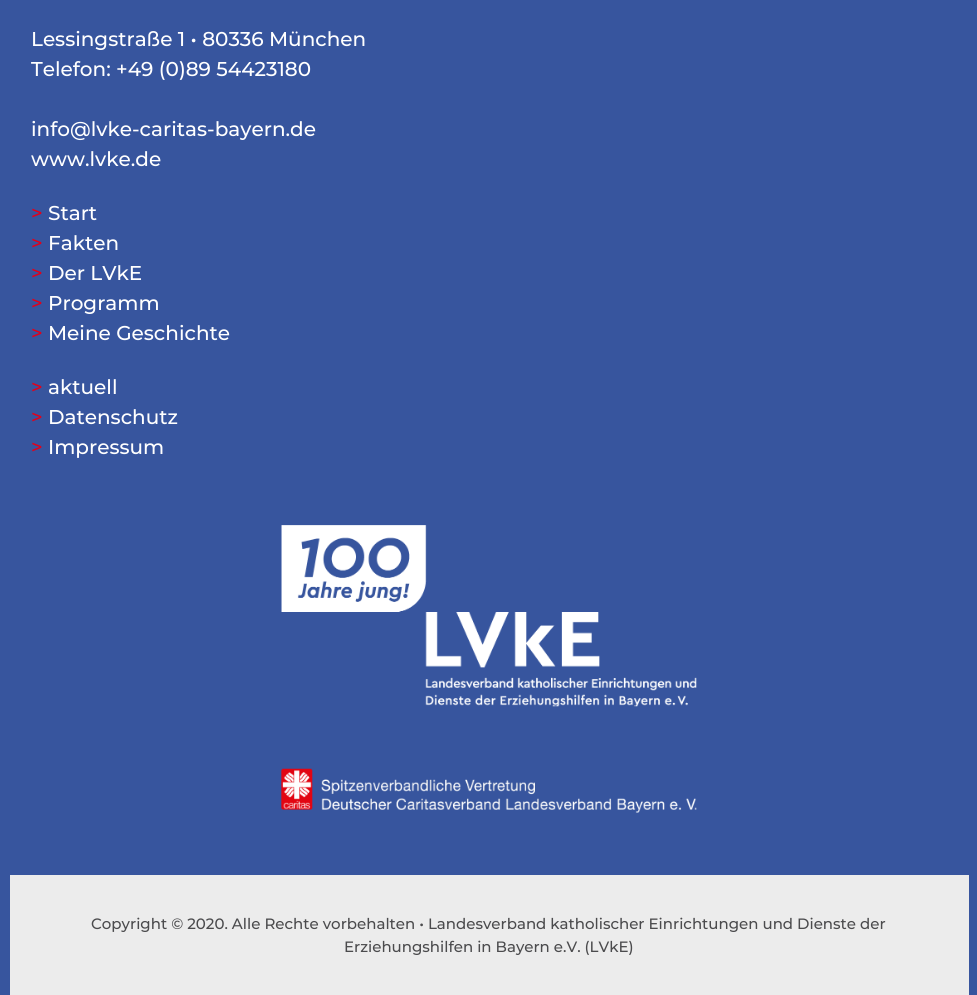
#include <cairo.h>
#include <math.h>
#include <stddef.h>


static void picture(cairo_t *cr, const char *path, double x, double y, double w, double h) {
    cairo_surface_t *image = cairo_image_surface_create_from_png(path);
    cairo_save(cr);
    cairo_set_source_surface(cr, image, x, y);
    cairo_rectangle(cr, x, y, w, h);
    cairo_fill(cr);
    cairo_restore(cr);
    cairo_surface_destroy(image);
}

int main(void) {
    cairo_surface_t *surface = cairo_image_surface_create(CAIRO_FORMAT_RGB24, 977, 995);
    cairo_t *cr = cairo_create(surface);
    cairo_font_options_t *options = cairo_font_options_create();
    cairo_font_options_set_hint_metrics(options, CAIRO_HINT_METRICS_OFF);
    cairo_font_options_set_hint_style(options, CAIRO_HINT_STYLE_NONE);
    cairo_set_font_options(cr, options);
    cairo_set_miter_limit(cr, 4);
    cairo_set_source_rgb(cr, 0.216, 0.333, 0.62);
    cairo_paint(cr);
    cairo_select_font_face(cr, "Montserrat Medium", CAIRO_FONT_SLANT_NORMAL, CAIRO_FONT_WEIGHT_NORMAL);
    cairo_set_font_size(cr, 20);
    cairo_set_source_rgb(cr, 1, 1, 1);
    cairo_move_to(cr, 31, 46);
    cairo_show_text(cr, "Lessingstraße 1 • 80336 München");
    cairo_move_to(cr, 31, 76);
    cairo_show_text(cr, "Telefon: +49 (0)89 54423180");
    cairo_move_to(cr, 31, 136);
    cairo_show_text(cr, "info@lvke-caritas-bayern.de");
    cairo_move_to(cr, 31, 166);
    cairo_show_text(cr, "www.lvke.de");
    cairo_set_source_rgb(cr, 0.886, 0, 0.102);
    cairo_move_to(cr, 31, 220);
    cairo_show_text(cr, ">");
    cairo_set_source_rgb(cr, 1, 1, 1);
    cairo_move_to(cr, 48, 220);
    cairo_show_text(cr, "Start");
    cairo_set_source_rgb(cr, 0.886, 0, 0.102);
    cairo_move_to(cr, 31, 250);
    cairo_show_text(cr, ">");
    cairo_set_source_rgb(cr, 1, 1, 1);
    cairo_move_to(cr, 48, 250);
    cairo_show_text(cr, "Fakten");
    cairo_set_source_rgb(cr, 0.886, 0, 0.102);
    cairo_move_to(cr, 31, 280);
    cairo_show_text(cr, ">");
    cairo_set_source_rgb(cr, 1, 1, 1);
    cairo_move_to(cr, 48, 280);
    cairo_show_text(cr, "Der LVkE");
    cairo_set_source_rgb(cr, 0.886, 0, 0.102);
    cairo_move_to(cr, 31, 310);
    cairo_show_text(cr, ">");
    cairo_set_source_rgb(cr, 1, 1, 1);
    cairo_move_to(cr, 48, 310);
    cairo_show_text(cr, "Programm");
    cairo_set_source_rgb(cr, 0.886, 0, 0.102);
    cairo_move_to(cr, 31, 340);
    cairo_show_text(cr, ">");
    cairo_set_source_rgb(cr, 1, 1, 1);
    cairo_move_to(cr, 48, 340);
    cairo_show_text(cr, "Meine Geschichte");
    cairo_set_source_rgb(cr, 0.886, 0, 0.102);
    cairo_move_to(cr, 31, 394);
    cairo_show_text(cr, ">");
    cairo_set_source_rgb(cr, 1, 1, 1);
    cairo_move_to(cr, 48, 394);
    cairo_show_text(cr, "aktuell");
    cairo_set_source_rgb(cr, 0.886, 0, 0.102);
    cairo_move_to(cr, 31, 424);
    cairo_show_text(cr, ">");
    cairo_set_source_rgb(cr, 1, 1, 1);
    cairo_move_to(cr, 48, 424);
    cairo_show_text(cr, "Datenschutz");
    cairo_set_source_rgb(cr, 0.886, 0, 0.102);
    cairo_move_to(cr, 31, 454);
    cairo_show_text(cr, ">");
    cairo_set_source_rgb(cr, 1, 1, 1);
    cairo_move_to(cr, 48, 454);
    cairo_show_text(cr, "Impressum");
    picture(cr, "img1.png", 281, 525, 416, 182);
    picture(cr, "img2.png", 281, 768, 416, 45);
    cairo_set_source_rgb(cr, 0.922, 0.922, 0.922);
    cairo_rectangle(cr, 10, 875, 959, 120);
    cairo_fill(cr);
    cairo_set_font_size(cr, 15);
    cairo_set_source_rgb(cr, 0.294, 0.294, 0.302);
    cairo_move_to(cr, 91, 929);
    cairo_show_text(cr, "Copyright © 2020. Alle Rechte vorbehalten • Landesverband katholischer Einrichtungen und Dienste der");
    cairo_move_to(cr, 344, 952);
    cairo_show_text(cr, "Erziehungshilfen in Bayern e.V. (LVkE)");
    cairo_surface_write_to_png(surface, "page.png");
    cairo_font_options_destroy(options);
    cairo_destroy(cr);
    cairo_surface_destroy(surface);
    return 0;
}
